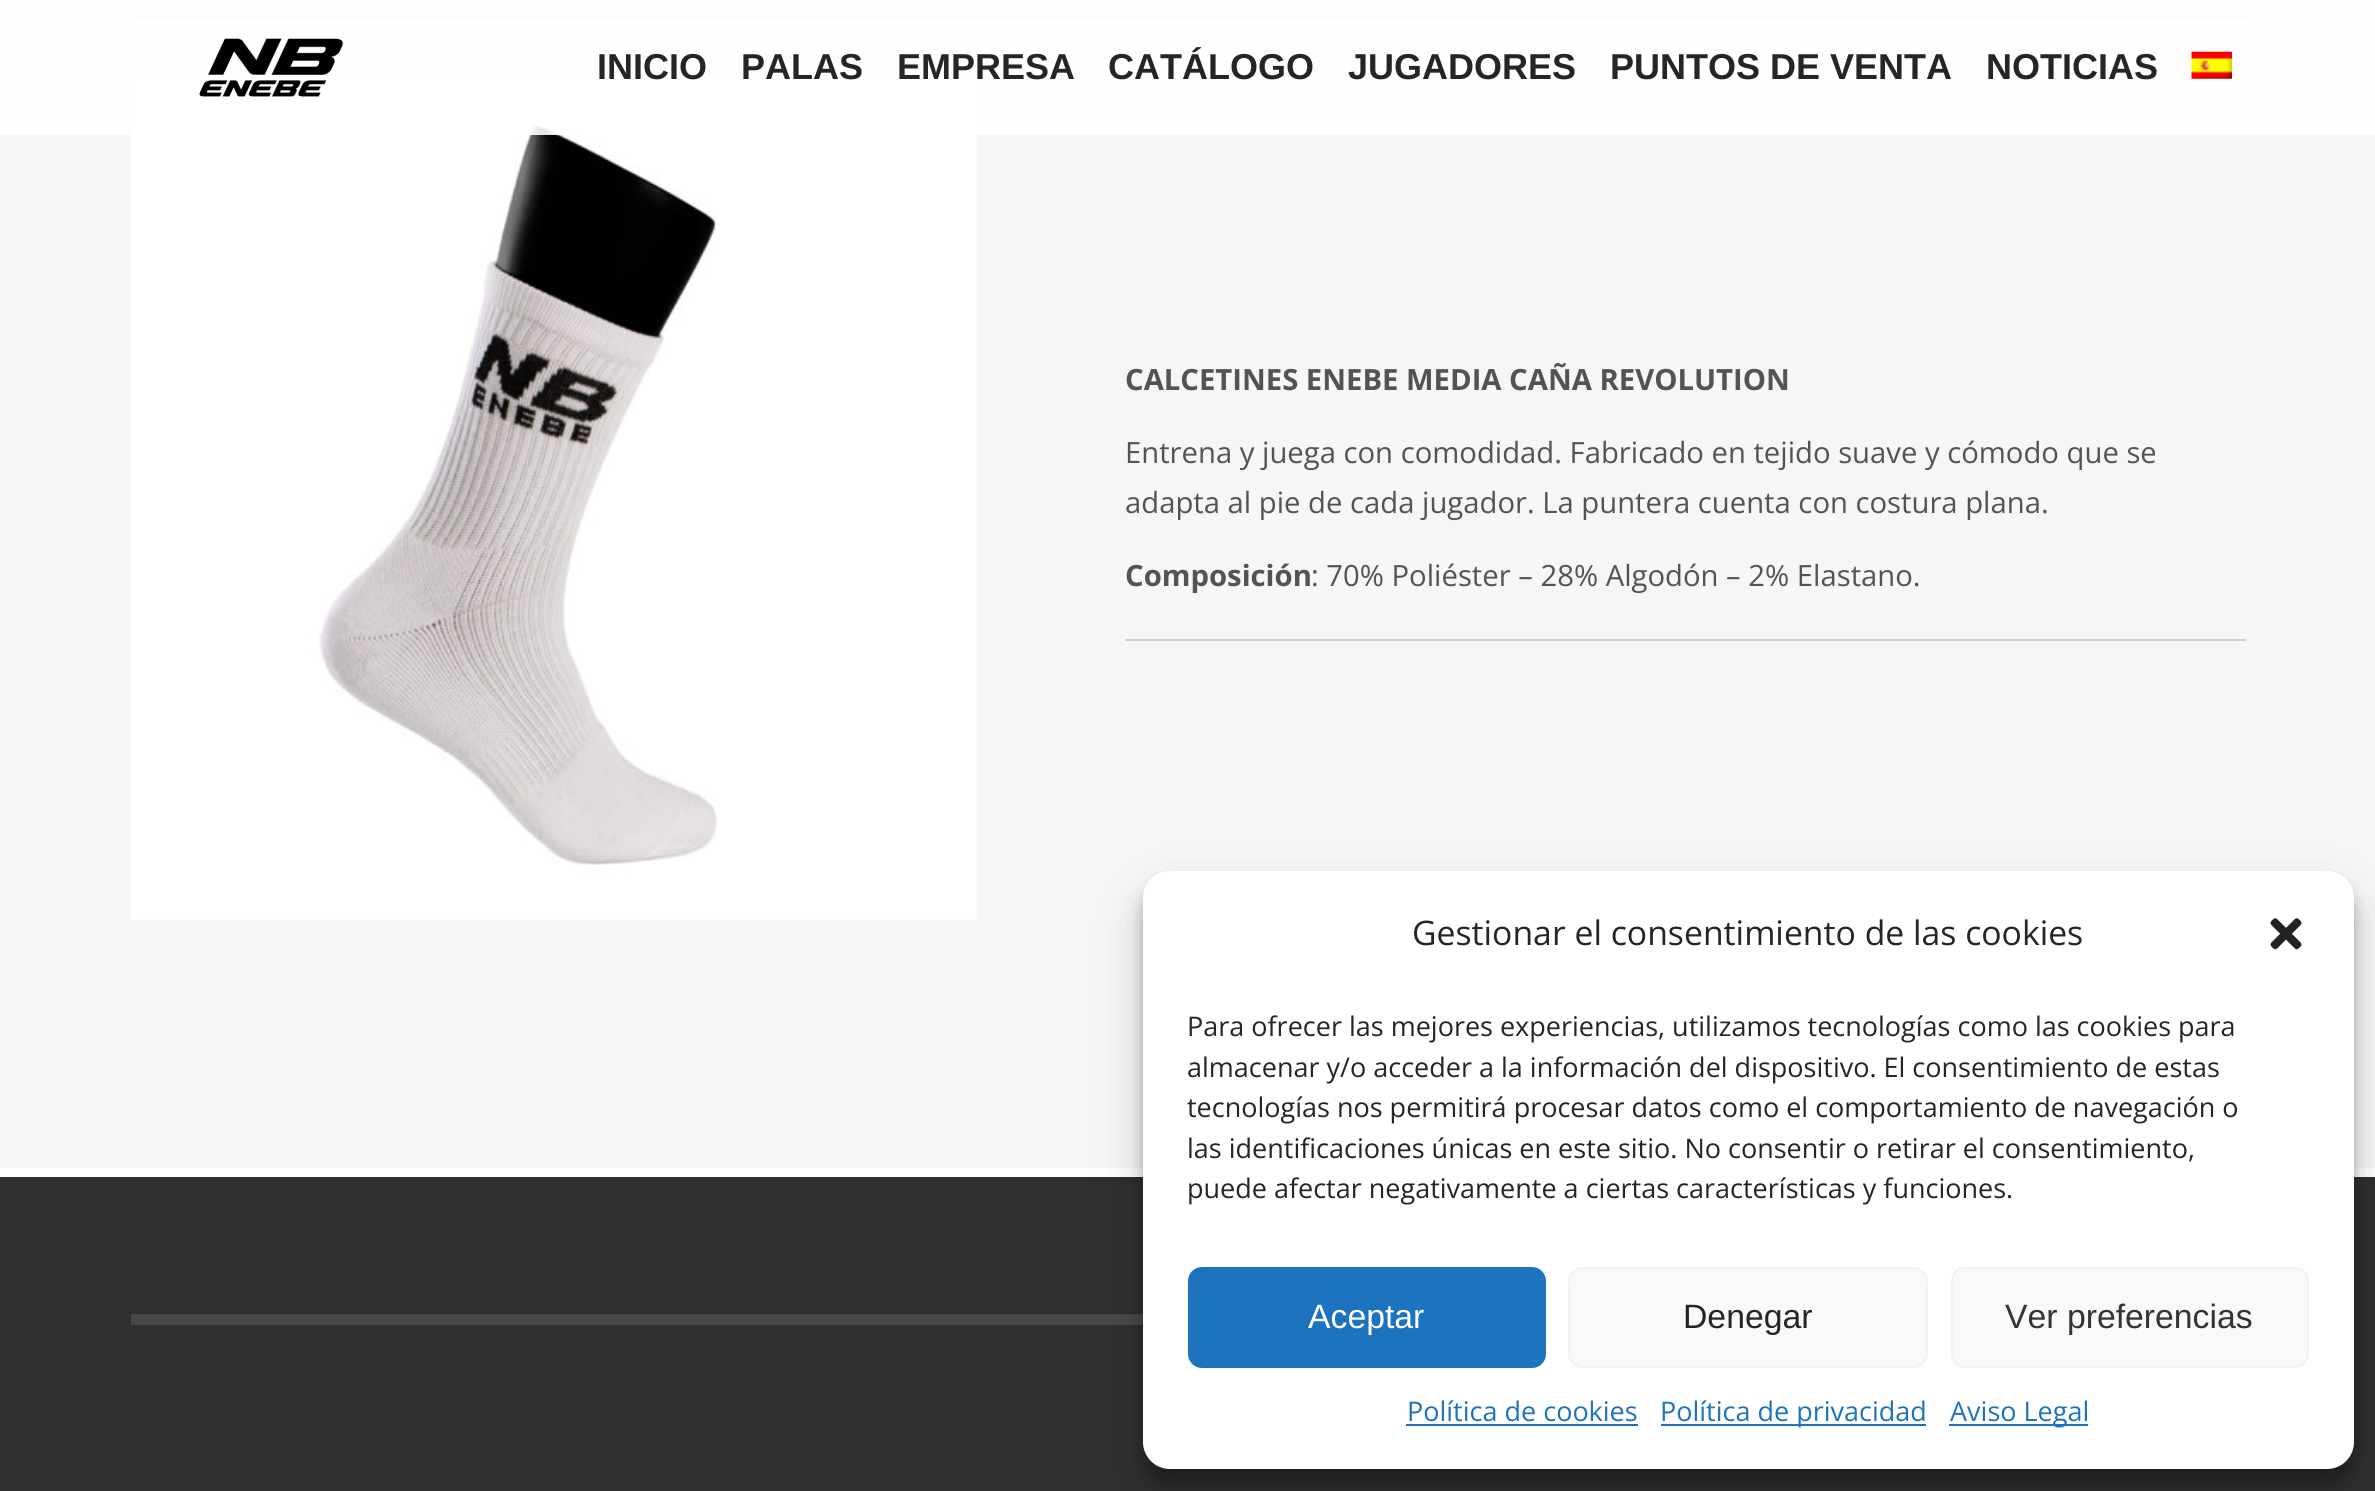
#include <cairo.h>
#include <math.h>
#include <stddef.h>


static void round_rect(cairo_t *cr, double x, double y, double w, double h, double r) {
    cairo_new_sub_path(cr);
    cairo_arc(cr, x + w - r, y + h - r, r, 0, M_PI / 2);
    cairo_arc(cr, x + r, y + h - r, r, M_PI / 2, M_PI);
    cairo_arc(cr, x + r, y + r, r, M_PI, 1.5 * M_PI);
    cairo_arc(cr, x + w - r, y + r, r, 1.5 * M_PI, 2 * M_PI);
    cairo_close_path(cr);
}

static void shadow(cairo_t *cr, double x, double y, double w, double h, double r, double blur, double alpha) {
    cairo_push_group_with_content(cr, CAIRO_CONTENT_ALPHA);
    cairo_set_operator(cr, CAIRO_OPERATOR_SOURCE);
    for (int i = 15; i >= -15 && fmin(w, h) + blur * i / 3 > 0; i -= 2) {
        double e = blur * i / 6;
        cairo_set_source_rgba(cr, 0, 0, 0, alpha * erfc((i - 1) / 8.5) / 2);
        round_rect(cr, x - e, y - e, w + 2 * e, h + 2 * e, fmax(0, fmin(r + e + blur * .6, fmin(w, h) / 2 + e)));
        cairo_fill(cr);
    }
    cairo_pattern_t *soft = cairo_pop_group(cr);
    cairo_mask(cr, soft);
    cairo_pattern_destroy(soft);
}

static void picture(cairo_t *cr, const char *path, double x, double y, double w, double h) {
    cairo_surface_t *image = cairo_image_surface_create_from_png(path);
    cairo_save(cr);
    cairo_set_source_surface(cr, image, x, y);
    cairo_rectangle(cr, x, y, w, h);
    cairo_fill(cr);
    cairo_restore(cr);
    cairo_surface_destroy(image);
}

int main(void) {
    cairo_surface_t *surface = cairo_image_surface_create(CAIRO_FORMAT_RGB24, 2375, 1491);
    cairo_t *cr = cairo_create(surface);
    cairo_font_options_t *options = cairo_font_options_create();
    cairo_font_options_set_hint_metrics(options, CAIRO_HINT_METRICS_OFF);
    cairo_font_options_set_hint_style(options, CAIRO_HINT_STYLE_NONE);
    cairo_set_font_options(cr, options);
    cairo_set_miter_limit(cr, 4);
    cairo_set_source_rgb(cr, 0.961, 0.961, 0.961);
    cairo_paint(cr);
    cairo_set_source_rgb(cr, 0.796, 0.796, 0.796);
    cairo_rectangle(cr, 131, 16, 2115, 2);
    cairo_fill(cr);
    picture(cr, "img3.png", 131, 74, 846, 846);
    cairo_set_source_rgba(cr, 1, 1, 1, 0.9);
    cairo_rectangle(cr, 0, 0, 2375, 135);
    cairo_fill(cr);
    picture(cr, "img1.png", 199, 38, 145, 59);
    cairo_select_font_face(cr, "Liberation Sans", CAIRO_FONT_SLANT_NORMAL, CAIRO_FONT_WEIGHT_BOLD);
    cairo_set_font_size(cr, 36);
    cairo_set_source_rgb(cr, 0.145, 0.145, 0.145);
    cairo_move_to(cr, 597, 79);
    cairo_show_text(cr, "INICIO");
    cairo_move_to(cr, 741, 79);
    cairo_show_text(cr, "PALAS");
    cairo_move_to(cr, 897, 79);
    cairo_show_text(cr, "EMPRESA");
    cairo_move_to(cr, 1108, 79);
    cairo_show_text(cr, "CATÁLOGO");
    cairo_move_to(cr, 1348, 79);
    cairo_show_text(cr, "JUGADORES");
    cairo_move_to(cr, 1610, 79);
    cairo_show_text(cr, "PUNTOS DE VENTA");
    cairo_move_to(cr, 1986, 79);
    cairo_show_text(cr, "NOTICIAS");
    picture(cr, "img2.png", 2191, 51, 41, 28);
    cairo_set_source_rgb(cr, 0.8, 0.8, 0.8);
    cairo_rectangle(cr, 1125, 639, 1121, 2);
    cairo_fill(cr);
    cairo_select_font_face(cr, "Open Sans", CAIRO_FONT_SLANT_NORMAL, CAIRO_FONT_WEIGHT_BOLD);
    cairo_set_font_size(cr, 29.25);
    cairo_set_source_rgb(cr, 0.325, 0.325, 0.325);
    cairo_move_to(cr, 1125, 390);
    cairo_show_text(cr, "CALCETINES ENEBE MEDIA CAÑA REVOLUTION");
    cairo_select_font_face(cr, "Open Sans", CAIRO_FONT_SLANT_NORMAL, CAIRO_FONT_WEIGHT_NORMAL);
    cairo_move_to(cr, 1125, 463);
    cairo_show_text(cr, "Entrena y juega con comodidad. Fabricado en tejido suave y cómodo que se");
    cairo_move_to(cr, 1125, 513);
    cairo_show_text(cr, "adapta al pie de cada jugador. La puntera cuenta con costura plana.");
    cairo_select_font_face(cr, "Open Sans", CAIRO_FONT_SLANT_NORMAL, CAIRO_FONT_WEIGHT_BOLD);
    cairo_move_to(cr, 1125, 586);
    cairo_show_text(cr, "Composición");
    cairo_select_font_face(cr, "Open Sans", CAIRO_FONT_SLANT_NORMAL, CAIRO_FONT_WEIGHT_NORMAL);
    cairo_move_to(cr, 1311, 586);
    cairo_show_text(cr, ": 70% Poliéster – 28% Algodón – 2% Elastano.");
    cairo_set_source_rgb(cr, 0.184, 0.184, 0.184);
    cairo_rectangle(cr, 0, 1177, 2375, 314);
    cairo_fill(cr);
    cairo_set_source_rgb(cr, 1, 1, 1);
    cairo_rectangle(cr, 0, 1168, 2375, 9);
    cairo_fill(cr);
    cairo_set_source_rgb(cr, 0.282, 0.282, 0.282);
    cairo_rectangle(cr, 131, 1314, 1012, 11);
    cairo_fill(cr);
    cairo_set_source_rgb(cr, 0, 0, 0);
    shadow(cr, 1143, 884, 1211, 599, 27, 7, 0.23);
    shadow(cr, 1143, 893, 1211, 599, 27, 22.5, 0.19);
    cairo_set_source_rgb(cr, 1, 1, 1);
    round_rect(cr, 1143, 871, 1211, 598, 27);
    cairo_fill(cr);
    cairo_set_font_size(cr, 33.75);
    cairo_set_source_rgb(cr, 0.145, 0.145, 0.145);
    cairo_move_to(cr, 1412, 945);
    cairo_show_text(cr, "Gestionar el consentimiento de las cookies");
    picture(cr, "img4.png", 2270, 918, 32, 32);
    cairo_set_font_size(cr, 27);
    cairo_move_to(cr, 1187, 1036);
    cairo_show_text(cr, "Para ofrecer las mejores experiencias, utilizamos tecnologías como las cookies para");
    cairo_move_to(cr, 1187, 1077);
    cairo_show_text(cr, "almacenar y/o acceder a la información del dispositivo. El consentimiento de estas");
    cairo_move_to(cr, 1187, 1117);
    cairo_show_text(cr, "tecnologías nos permitirá procesar datos como el comportamiento de navegación o");
    cairo_move_to(cr, 1187, 1158);
    cairo_show_text(cr, "las identificaciones únicas en este sitio. No consentir o retirar el consentimiento,");
    cairo_move_to(cr, 1187, 1198);
    cairo_show_text(cr, "puede afectar negativamente a ciertas características y funciones.");
    cairo_set_source_rgb(cr, 0.118, 0.451, 0.745);
    round_rect(cr, 1189, 1268, 356, 99, 13);
    cairo_fill_preserve(cr);
    cairo_stroke(cr);
    cairo_select_font_face(cr, "Liberation Sans", CAIRO_FONT_SLANT_NORMAL, CAIRO_FONT_WEIGHT_NORMAL);
    cairo_set_font_size(cr, 33.75);
    cairo_set_source_rgb(cr, 1, 1, 1);
    cairo_move_to(cr, 1308, 1328);
    cairo_show_text(cr, "Aceptar");
    cairo_set_source_rgb(cr, 0.976, 0.976, 0.976);
    round_rect(cr, 1569, 1268, 358, 99, 13);
    cairo_fill_preserve(cr);
    cairo_set_source_rgb(cr, 0.949, 0.949, 0.949);
    cairo_stroke(cr);
    cairo_set_source_rgb(cr, 0.145, 0.145, 0.145);
    cairo_move_to(cr, 1683, 1328);
    cairo_show_text(cr, "Denegar");
    cairo_set_source_rgb(cr, 0.976, 0.976, 0.976);
    round_rect(cr, 1952, 1268, 356, 99, 13);
    cairo_fill_preserve(cr);
    cairo_set_source_rgb(cr, 0.949, 0.949, 0.949);
    cairo_stroke(cr);
    cairo_set_source_rgb(cr, 0.2, 0.2, 0.2);
    cairo_move_to(cr, 2005, 1328);
    cairo_show_text(cr, "Ver preferencias");
    cairo_select_font_face(cr, "Open Sans", CAIRO_FONT_SLANT_NORMAL, CAIRO_FONT_WEIGHT_NORMAL);
    cairo_set_font_size(cr, 27);
    cairo_set_source_rgb(cr, 0.118, 0.451, 0.745);
    cairo_move_to(cr, 1407, 1421);
    cairo_show_text(cr, "Política de cookies");
    cairo_rectangle(cr, 1406, 1424, 232, 2);
    cairo_fill(cr);
    cairo_rectangle(cr, 1661, 1424, 265, 2);
    cairo_fill(cr);
    cairo_move_to(cr, 1660, 1421);
    cairo_show_text(cr, "Política de privacidad");
    cairo_rectangle(cr, 1949, 1424, 139, 2);
    cairo_fill(cr);
    cairo_move_to(cr, 1950, 1421);
    cairo_show_text(cr, "Aviso Legal");
    cairo_surface_write_to_png(surface, "page.png");
    cairo_font_options_destroy(options);
    cairo_destroy(cr);
    cairo_surface_destroy(surface);
    return 0;
}
